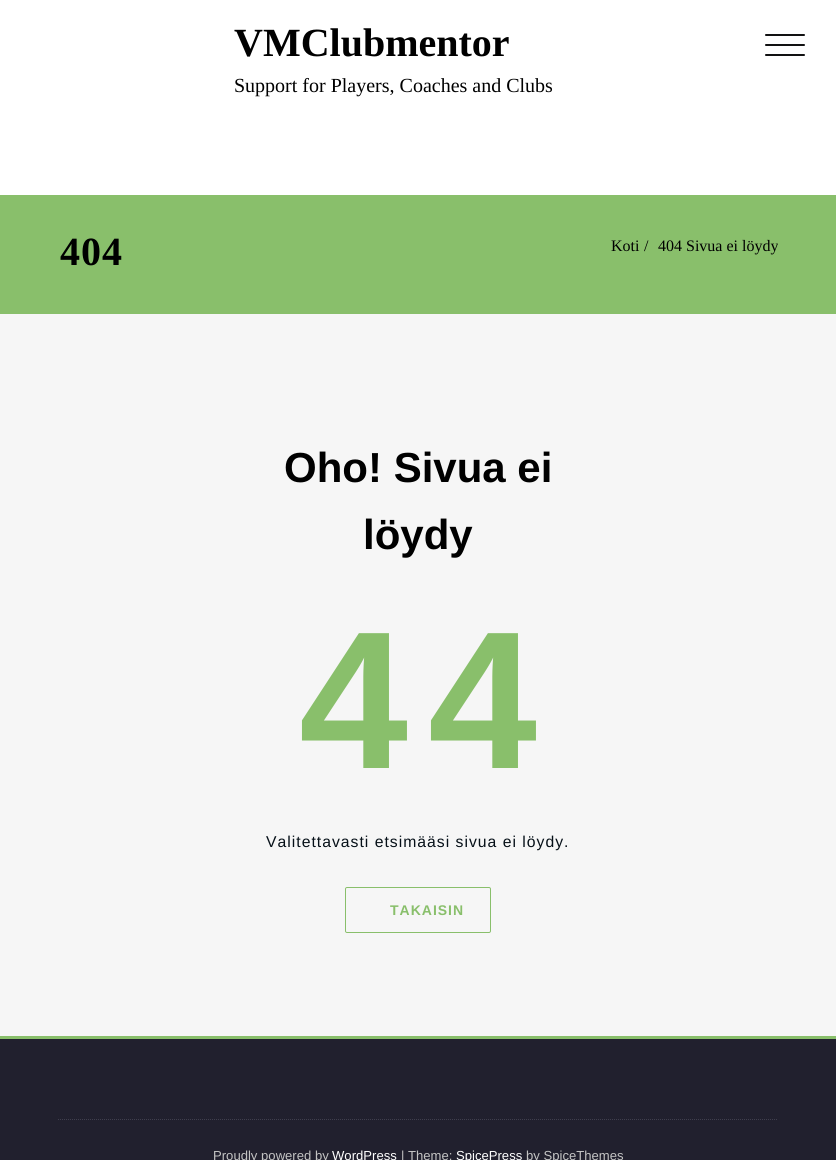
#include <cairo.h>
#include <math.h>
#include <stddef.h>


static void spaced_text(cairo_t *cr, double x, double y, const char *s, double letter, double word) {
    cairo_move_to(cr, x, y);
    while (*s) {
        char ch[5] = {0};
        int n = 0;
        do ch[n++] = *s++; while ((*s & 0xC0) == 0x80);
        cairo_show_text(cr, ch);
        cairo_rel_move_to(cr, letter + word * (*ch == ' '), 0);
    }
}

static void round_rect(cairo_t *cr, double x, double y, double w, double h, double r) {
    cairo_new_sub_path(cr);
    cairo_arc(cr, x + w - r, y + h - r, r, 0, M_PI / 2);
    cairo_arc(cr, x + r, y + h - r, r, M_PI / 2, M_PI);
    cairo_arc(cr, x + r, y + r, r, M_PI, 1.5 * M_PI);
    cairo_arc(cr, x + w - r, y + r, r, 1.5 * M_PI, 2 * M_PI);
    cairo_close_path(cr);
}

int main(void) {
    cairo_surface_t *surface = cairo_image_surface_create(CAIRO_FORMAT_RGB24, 836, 1160);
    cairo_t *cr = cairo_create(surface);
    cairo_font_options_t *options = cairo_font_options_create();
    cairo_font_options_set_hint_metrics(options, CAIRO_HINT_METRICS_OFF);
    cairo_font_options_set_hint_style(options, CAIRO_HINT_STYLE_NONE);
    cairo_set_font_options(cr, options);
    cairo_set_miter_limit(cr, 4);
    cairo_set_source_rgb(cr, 0.961, 0.961, 0.961);
    cairo_paint(cr);
    cairo_set_source_rgb(cr, 1, 1, 1);
    cairo_rectangle(cr, 0, 0, 836, 195);
    cairo_fill(cr);
    cairo_select_font_face(cr, "Liberation Serif", CAIRO_FONT_SLANT_NORMAL, CAIRO_FONT_WEIGHT_BOLD);
    cairo_set_font_size(cr, 40);
    cairo_set_source_rgb(cr, 0, 0, 0);
    cairo_move_to(cr, 234, 56);
    cairo_show_text(cr, "VMClubmentor");
    cairo_select_font_face(cr, "Liberation Serif", CAIRO_FONT_SLANT_NORMAL, CAIRO_FONT_WEIGHT_NORMAL);
    cairo_set_font_size(cr, 20);
    cairo_move_to(cr, 234, 92);
    cairo_show_text(cr, "Support for Players, Coaches and Clubs");
    cairo_set_source_rgb(cr, 0.071, 0.071, 0.075);
    round_rect(cr, 765, 34, 40, 2, 1);
    cairo_fill(cr);
    round_rect(cr, 765, 44, 40, 2, 1);
    cairo_fill(cr);
    round_rect(cr, 765, 54, 40, 2, 1);
    cairo_fill(cr);
    cairo_set_source_rgb(cr, 0.537, 0.749, 0.42);
    cairo_rectangle(cr, 0, 195, 836, 119);
    cairo_fill(cr);
    cairo_select_font_face(cr, "Liberation Serif", CAIRO_FONT_SLANT_NORMAL, CAIRO_FONT_WEIGHT_BOLD);
    cairo_set_font_size(cr, 40);
    cairo_set_source_rgb(cr, 0, 0, 0);
    spaced_text(cr, 60, 265, "404", 1, 0);
    cairo_select_font_face(cr, "Liberation Serif", CAIRO_FONT_SLANT_NORMAL, CAIRO_FONT_WEIGHT_NORMAL);
    cairo_set_font_size(cr, 16);
    cairo_move_to(cr, 611, 251);
    cairo_show_text(cr, "Koti");
    cairo_move_to(cr, 644, 251);
    cairo_show_text(cr, "/");
    cairo_move_to(cr, 658, 251);
    cairo_show_text(cr, "404 Sivua ei löydy");
    cairo_select_font_face(cr, "Liberation Sans", CAIRO_FONT_SLANT_NORMAL, CAIRO_FONT_WEIGHT_BOLD);
    cairo_set_font_size(cr, 42);
    cairo_move_to(cr, 284, 482);
    cairo_show_text(cr, "Oho! Sivua ei");
    cairo_move_to(cr, 363, 549);
    cairo_show_text(cr, "löydy");
    cairo_set_font_size(cr, 196);
    cairo_set_source_rgb(cr, 0.537, 0.749, 0.42);
    cairo_move_to(cr, 299, 768);
    cairo_show_text(cr, "4");
    cairo_move_to(cr, 428, 768);
    cairo_show_text(cr, "4");
    cairo_select_font_face(cr, "Liberation Sans", CAIRO_FONT_SLANT_NORMAL, CAIRO_FONT_WEIGHT_NORMAL);
    cairo_set_font_size(cr, 15.75);
    cairo_set_source_rgb(cr, 0.024, 0.063, 0.094);
    spaced_text(cr, 266, 847, "Valitettavasti etsimääsi sivua ei löydy.", 1, 0);
    round_rect(cr, 345.5, 887.5, 145, 45, 1.5);
    cairo_set_source_rgb(cr, 0.537, 0.749, 0.42);
    cairo_set_line_width(cr, 1);
    cairo_stroke(cr);
    cairo_select_font_face(cr, "Liberation Sans", CAIRO_FONT_SLANT_NORMAL, CAIRO_FONT_WEIGHT_BOLD);
    cairo_set_font_size(cr, 14);
    spaced_text(cr, 390, 915, "TAKAISIN", 1, 0);
    cairo_set_source_rgb(cr, 0.129, 0.125, 0.18);
    cairo_rectangle(cr, 0, 1039, 836, 121);
    cairo_fill(cr);
    cairo_set_source_rgb(cr, 0.537, 0.749, 0.42);
    cairo_rectangle(cr, 0, 1036, 836, 3);
    cairo_fill(cr);
    cairo_new_path(cr);
    cairo_move_to(cr, 58, 1119.5);
    cairo_line_to(cr, 778, 1119.5);
    cairo_set_source_rgb(cr, 0.251, 0.247, 0.306);
    cairo_set_dash(cr, (double[]){1, 1}, 2, 0);
    cairo_stroke(cr);
    cairo_select_font_face(cr, "Liberation Sans", CAIRO_FONT_SLANT_NORMAL, CAIRO_FONT_WEIGHT_NORMAL);
    cairo_set_font_size(cr, 13.1);
    cairo_set_source_rgb(cr, 0.769, 0.769, 0.769);
    cairo_move_to(cr, 213, 1160);
    cairo_show_text(cr, "Proudly powered by");
    cairo_set_source_rgb(cr, 1, 1, 1);
    cairo_move_to(cr, 332, 1160);
    cairo_show_text(cr, "WordPress");
    cairo_set_source_rgb(cr, 0.769, 0.769, 0.769);
    cairo_move_to(cr, 401, 1160);
    cairo_show_text(cr, "| Theme:");
    cairo_set_source_rgb(cr, 1, 1, 1);
    cairo_move_to(cr, 456, 1160);
    cairo_show_text(cr, "SpicePress");
    cairo_set_source_rgb(cr, 0.769, 0.769, 0.769);
    cairo_move_to(cr, 526, 1160);
    cairo_show_text(cr, "by SpiceThemes");
    cairo_surface_write_to_png(surface, "page.png");
    cairo_font_options_destroy(options);
    cairo_destroy(cr);
    cairo_surface_destroy(surface);
    return 0;
}
